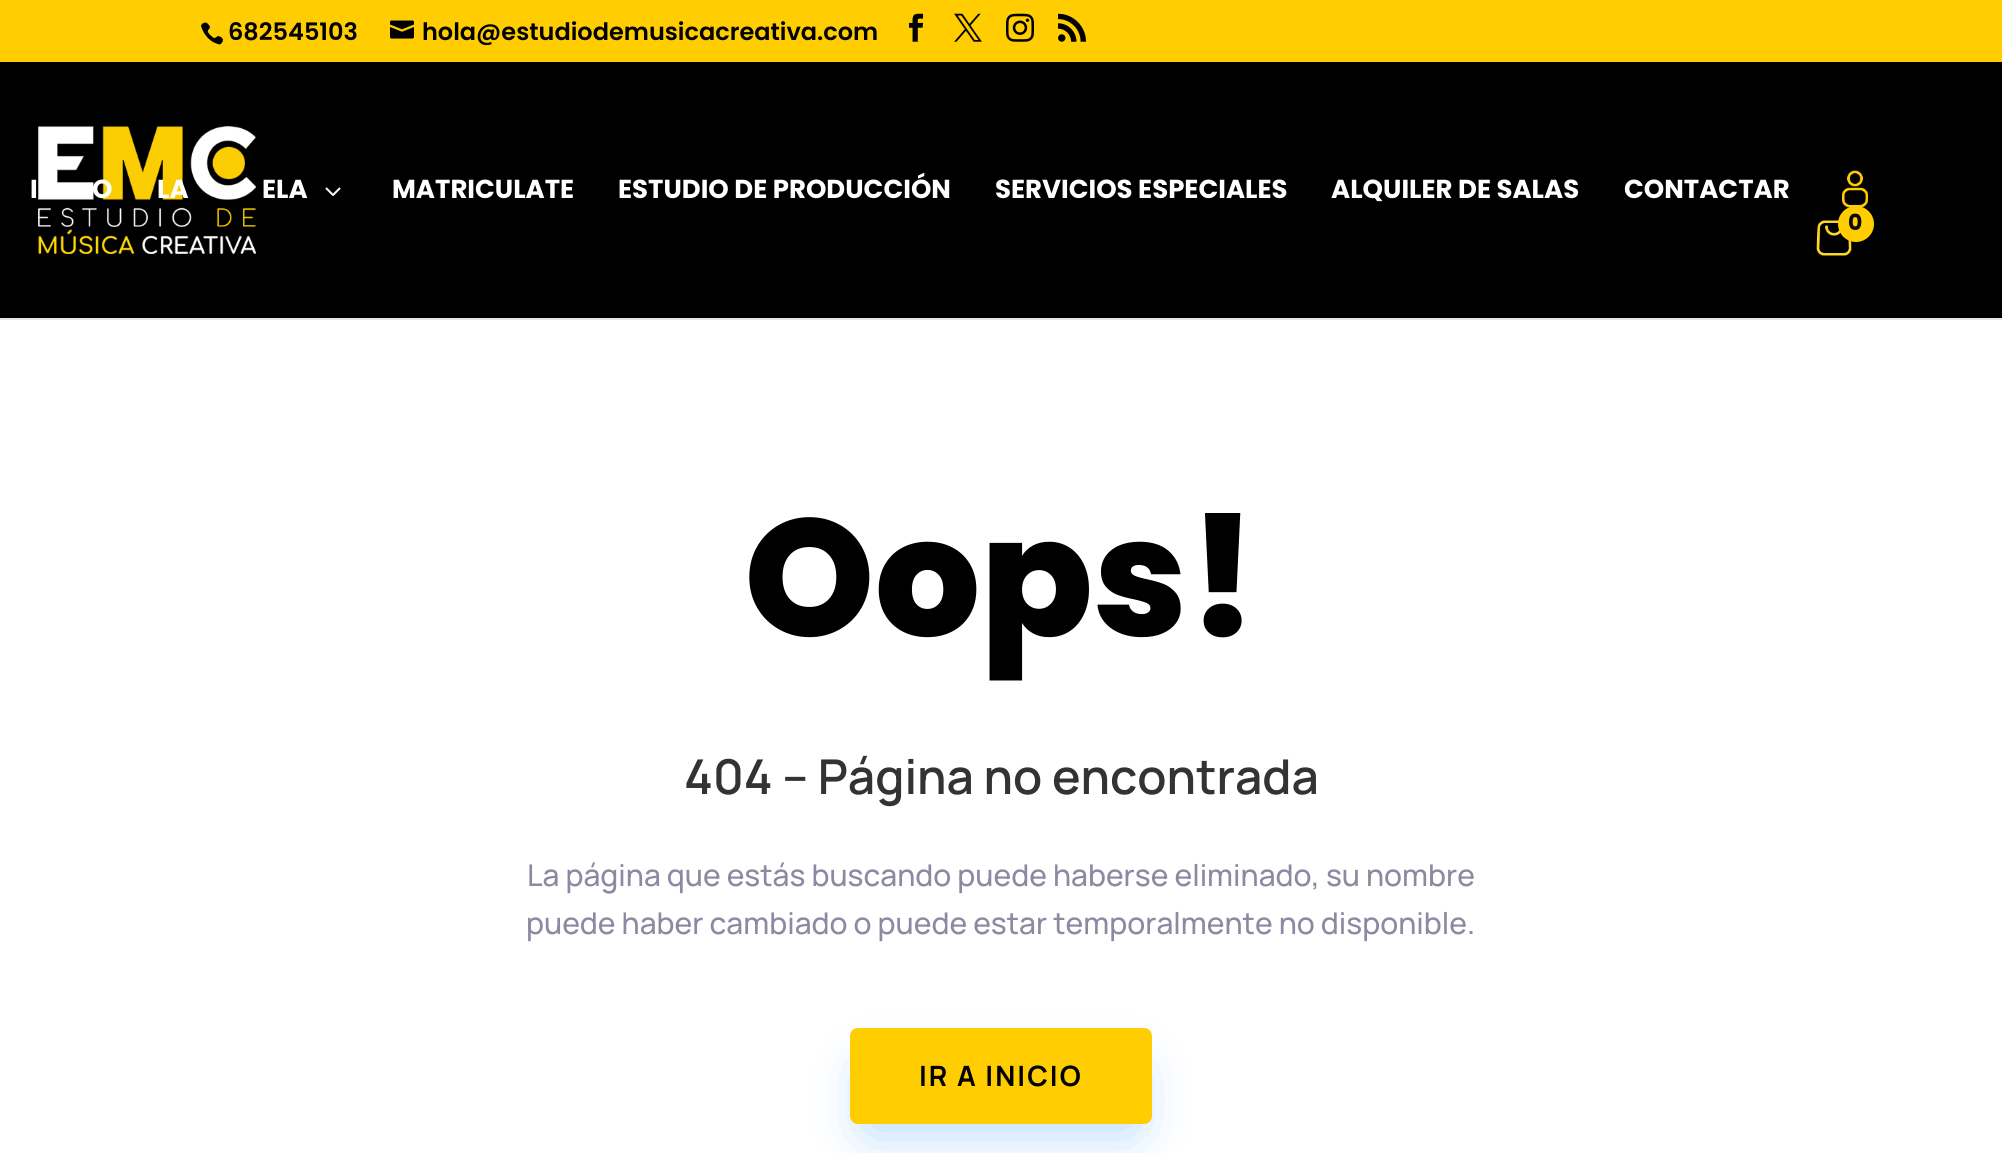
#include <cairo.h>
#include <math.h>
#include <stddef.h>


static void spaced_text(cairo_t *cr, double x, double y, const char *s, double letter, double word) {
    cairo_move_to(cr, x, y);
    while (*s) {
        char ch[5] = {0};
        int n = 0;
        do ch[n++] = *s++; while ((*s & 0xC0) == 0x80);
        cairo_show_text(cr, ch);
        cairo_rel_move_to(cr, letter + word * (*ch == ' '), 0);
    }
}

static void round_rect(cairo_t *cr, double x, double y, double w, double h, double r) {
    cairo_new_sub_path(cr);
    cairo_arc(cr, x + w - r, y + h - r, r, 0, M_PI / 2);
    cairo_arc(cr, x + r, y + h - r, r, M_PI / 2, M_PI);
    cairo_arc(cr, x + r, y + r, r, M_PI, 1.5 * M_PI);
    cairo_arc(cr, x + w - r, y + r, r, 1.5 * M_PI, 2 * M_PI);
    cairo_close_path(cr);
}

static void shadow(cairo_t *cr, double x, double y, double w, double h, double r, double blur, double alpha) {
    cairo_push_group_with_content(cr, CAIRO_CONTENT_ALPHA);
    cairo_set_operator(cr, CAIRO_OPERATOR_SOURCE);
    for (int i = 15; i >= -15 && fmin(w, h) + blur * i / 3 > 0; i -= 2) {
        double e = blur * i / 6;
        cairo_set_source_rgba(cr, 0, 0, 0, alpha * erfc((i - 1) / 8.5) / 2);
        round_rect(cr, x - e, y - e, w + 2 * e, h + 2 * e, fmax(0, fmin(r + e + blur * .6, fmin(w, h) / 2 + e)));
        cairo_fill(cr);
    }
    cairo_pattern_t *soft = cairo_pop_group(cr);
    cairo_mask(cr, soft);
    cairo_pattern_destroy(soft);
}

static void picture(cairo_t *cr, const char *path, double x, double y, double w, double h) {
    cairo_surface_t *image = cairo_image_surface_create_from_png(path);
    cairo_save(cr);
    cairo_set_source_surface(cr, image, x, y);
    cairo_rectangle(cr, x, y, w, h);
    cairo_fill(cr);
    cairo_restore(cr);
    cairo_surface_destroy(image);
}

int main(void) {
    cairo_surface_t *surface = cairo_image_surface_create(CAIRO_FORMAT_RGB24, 2002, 1153);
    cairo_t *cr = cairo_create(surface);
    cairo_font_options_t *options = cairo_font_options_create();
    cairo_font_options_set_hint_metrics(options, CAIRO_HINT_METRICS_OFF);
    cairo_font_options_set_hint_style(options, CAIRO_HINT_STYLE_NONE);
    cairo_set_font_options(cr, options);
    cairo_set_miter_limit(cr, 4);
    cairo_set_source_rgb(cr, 1, 1, 1);
    cairo_paint(cr);
    cairo_set_source_rgb(cr, 1, 0.804, 0);
    cairo_rectangle(cr, 0, 0, 2002, 62);
    cairo_fill(cr);
    picture(cr, "img1.png", 201, 22, 22, 23);
    cairo_select_font_face(cr, "Poppins SemiBold", CAIRO_FONT_SLANT_NORMAL, CAIRO_FONT_WEIGHT_NORMAL);
    cairo_set_font_size(cr, 24);
    cairo_set_source_rgb(cr, 0, 0, 0);
    cairo_move_to(cr, 228, 40);
    cairo_show_text(cr, "682545103");
    picture(cr, "img2.png", 390, 20, 24, 19);
    cairo_move_to(cr, 422, 40);
    cairo_show_text(cr, "hola@estudiodemusicacreativa.com");
    picture(cr, "img3.png", 909, 13, 15, 29);
    picture(cr, "img4.png", 954, 13, 28, 29);
    picture(cr, "img5.png", 1006, 13, 28, 29);
    picture(cr, "img6.png", 1058, 13, 28, 29);
    cairo_set_source_rgb(cr, 0.902, 0.902, 0.902);
    cairo_rectangle(cr, 0, 318, 2002, 2);
    cairo_fill(cr);
    cairo_set_source_rgb(cr, 0, 0, 0);
    cairo_rectangle(cr, 0, 62, 2002, 256);
    cairo_fill(cr);
    picture(cr, "img7.png", 38, 126, 218, 128);
    cairo_select_font_face(cr, "Poppins", CAIRO_FONT_SLANT_NORMAL, CAIRO_FONT_WEIGHT_BOLD);
    cairo_set_font_size(cr, 26);
    cairo_set_source_rgb(cr, 1, 1, 1);
    cairo_move_to(cr, 30, 198);
    cairo_show_text(cr, "I");
    cairo_move_to(cr, 92, 198);
    cairo_show_text(cr, "O");
    cairo_move_to(cr, 157, 198);
    cairo_show_text(cr, "LA");
    cairo_move_to(cr, 262, 198);
    cairo_show_text(cr, "ELA");
    picture(cr, "img8.png", 325, 187, 16, 9);
    cairo_move_to(cr, 392, 198);
    cairo_show_text(cr, "MATRICULATE");
    cairo_move_to(cr, 618, 198);
    cairo_show_text(cr, "ESTUDIO DE PRODUCCIÓN");
    cairo_move_to(cr, 995, 198);
    cairo_show_text(cr, "SERVICIOS ESPECIALES");
    cairo_move_to(cr, 1331, 198);
    cairo_show_text(cr, "ALQUILER DE SALAS");
    cairo_move_to(cr, 1624, 198);
    cairo_show_text(cr, "CONTACTAR");
    picture(cr, "img9.png", 1842, 170, 26, 38);
    picture(cr, "img10.png", 1816, 220, 36, 36);
    cairo_set_source_rgb(cr, 1, 0.804, 0);
    cairo_arc(cr, 1856, 224, 18, 0, 2 * M_PI);
    cairo_fill(cr);
    cairo_set_font_size(cr, 22);
    cairo_set_source_rgb(cr, 0.039, 0.039, 0.039);
    cairo_move_to(cr, 1848, 230);
    cairo_show_text(cr, "0");
    cairo_select_font_face(cr, "Poppins ExtraBold", CAIRO_FONT_SLANT_NORMAL, CAIRO_FONT_WEIGHT_NORMAL);
    cairo_set_font_size(cr, 166);
    cairo_set_source_rgb(cr, 0, 0, 0);
    cairo_move_to(cr, 744, 636);
    cairo_show_text(cr, "Oops!");
    cairo_select_font_face(cr, "Manrope ExtraLight", CAIRO_FONT_SLANT_NORMAL, CAIRO_FONT_WEIGHT_NORMAL);
    cairo_set_font_size(cr, 48);
    cairo_set_source_rgb(cr, 0.2, 0.2, 0.2);
    cairo_move_to(cr, 684, 794);
    cairo_show_text(cr, "404 – Página no encontrada");
    cairo_select_font_face(cr, "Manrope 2 ExtraLight", CAIRO_FONT_SLANT_NORMAL, CAIRO_FONT_WEIGHT_NORMAL);
    cairo_set_font_size(cr, 30);
    cairo_set_source_rgb(cr, 0.549, 0.537, 0.635);
    cairo_move_to(cr, 527, 886);
    cairo_show_text(cr, "La página que estás buscando puede haberse eliminado, su nombre");
    cairo_move_to(cr, 526, 934);
    cairo_show_text(cr, "puede haber cambiado o puede estar temporalmente no disponible.");
    cairo_set_source_rgb(cr, 0, 0.478, 1);
    shadow(cr, 870, 1072, 262, 56, 0, 28, 0.33);
    cairo_set_source_rgb(cr, 1, 0.804, 0);
    round_rect(cr, 850, 1028, 302, 96, 8);
    cairo_fill(cr);
    cairo_select_font_face(cr, "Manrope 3 ExtraLight", CAIRO_FONT_SLANT_NORMAL, CAIRO_FONT_WEIGHT_NORMAL);
    cairo_set_font_size(cr, 28);
    cairo_set_source_rgb(cr, 0, 0, 0);
    spaced_text(cr, 919, 1086, "IR A INICIO", 2, 0);
    cairo_surface_write_to_png(surface, "page.png");
    cairo_font_options_destroy(options);
    cairo_destroy(cr);
    cairo_surface_destroy(surface);
    return 0;
}
